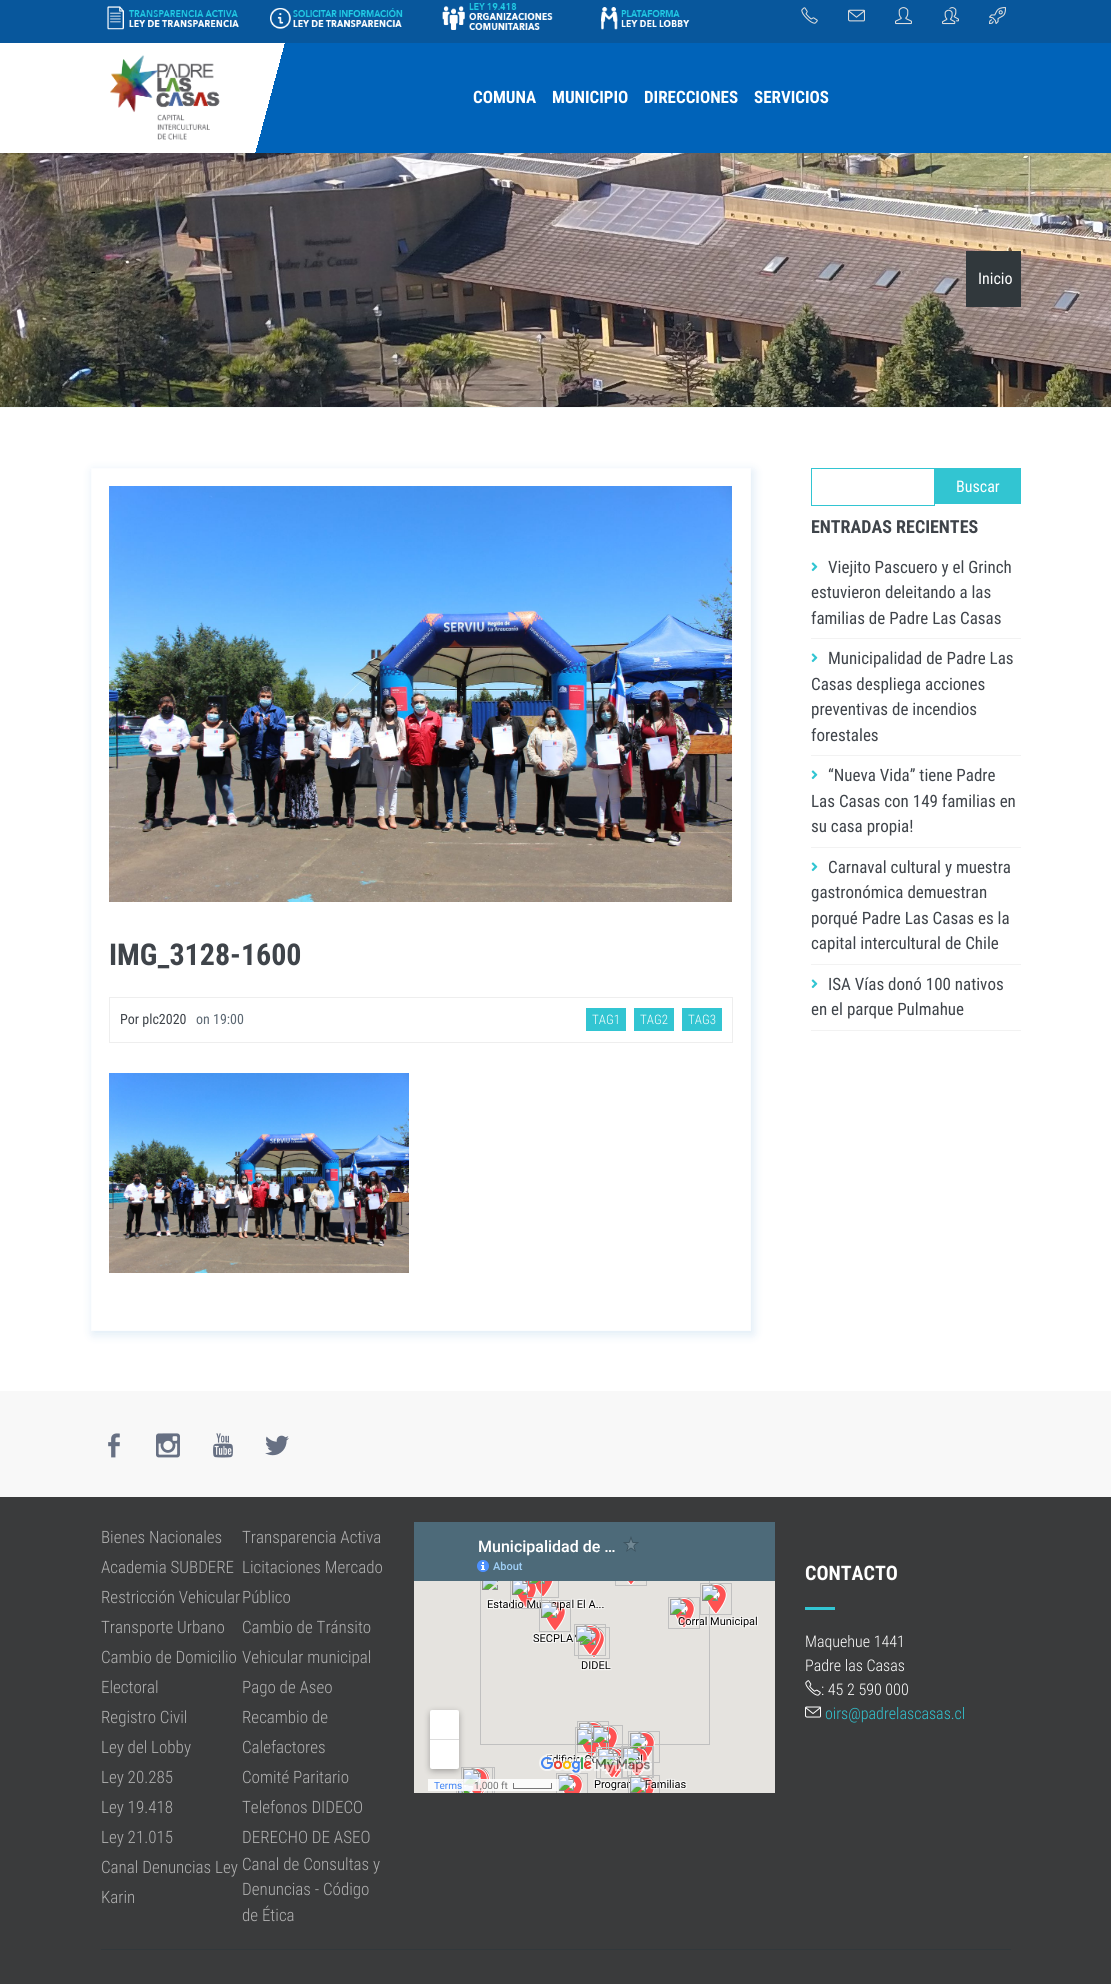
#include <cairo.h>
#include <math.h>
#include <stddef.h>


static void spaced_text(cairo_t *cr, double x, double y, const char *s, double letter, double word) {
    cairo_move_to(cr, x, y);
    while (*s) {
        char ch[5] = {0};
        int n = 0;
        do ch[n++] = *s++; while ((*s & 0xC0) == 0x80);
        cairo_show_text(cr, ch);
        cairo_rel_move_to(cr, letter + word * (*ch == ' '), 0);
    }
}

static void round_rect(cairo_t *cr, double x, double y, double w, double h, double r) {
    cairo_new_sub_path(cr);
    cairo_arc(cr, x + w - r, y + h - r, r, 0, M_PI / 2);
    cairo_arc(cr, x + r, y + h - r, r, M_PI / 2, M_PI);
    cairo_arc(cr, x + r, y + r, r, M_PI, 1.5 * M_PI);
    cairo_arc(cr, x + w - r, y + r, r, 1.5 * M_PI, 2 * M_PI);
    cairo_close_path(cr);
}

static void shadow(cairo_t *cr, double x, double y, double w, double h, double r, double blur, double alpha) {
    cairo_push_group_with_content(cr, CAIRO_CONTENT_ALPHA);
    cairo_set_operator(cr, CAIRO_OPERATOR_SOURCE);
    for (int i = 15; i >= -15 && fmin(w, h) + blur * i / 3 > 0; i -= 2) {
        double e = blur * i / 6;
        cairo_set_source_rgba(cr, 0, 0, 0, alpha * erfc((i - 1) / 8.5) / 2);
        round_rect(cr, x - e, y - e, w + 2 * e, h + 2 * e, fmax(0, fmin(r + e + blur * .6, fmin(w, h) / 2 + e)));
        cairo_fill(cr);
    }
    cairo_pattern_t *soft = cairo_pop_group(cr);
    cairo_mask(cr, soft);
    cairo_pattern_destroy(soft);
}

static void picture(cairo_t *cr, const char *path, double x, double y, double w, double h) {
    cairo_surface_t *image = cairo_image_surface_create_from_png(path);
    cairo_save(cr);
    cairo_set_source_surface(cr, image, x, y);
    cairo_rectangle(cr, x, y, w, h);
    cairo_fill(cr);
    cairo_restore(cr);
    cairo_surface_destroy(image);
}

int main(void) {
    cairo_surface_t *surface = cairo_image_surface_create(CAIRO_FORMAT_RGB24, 1111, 1984);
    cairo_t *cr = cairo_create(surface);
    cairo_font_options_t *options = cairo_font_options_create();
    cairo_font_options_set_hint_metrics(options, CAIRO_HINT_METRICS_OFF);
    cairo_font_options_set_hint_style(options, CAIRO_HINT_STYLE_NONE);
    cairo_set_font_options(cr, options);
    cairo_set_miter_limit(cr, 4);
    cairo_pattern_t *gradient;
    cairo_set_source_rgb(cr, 1, 1, 1);
    cairo_paint(cr);
    cairo_set_source_rgb(cr, 0.035, 0.341, 0.612);
    cairo_rectangle(cr, 0, 0, 1111, 43);
    cairo_fill(cr);
    picture(cr, "img1.png", 107, 6, 132, 24);
    picture(cr, "img2.png", 270, 8, 133, 21);
    picture(cr, "img3.png", 442, 3, 111, 27);
    picture(cr, "img4.png", 601, 7, 89, 23);
    picture(cr, "img5.png", 801, 7, 17, 17);
    picture(cr, "img6.png", 848, 9, 17, 13);
    picture(cr, "img7.png", 895, 7, 17, 18);
    picture(cr, "img8.png", 942, 7, 17, 18);
    picture(cr, "img9.png", 989, 7, 17, 17);
    gradient = cairo_pattern_create_linear(23, -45, 1088, 241);
    cairo_pattern_add_color_stop_rgba(gradient, 0, 1, 1, 1, 1);
    cairo_pattern_add_color_stop_rgba(gradient, 0.25, 1, 1, 1, 1);
    cairo_pattern_add_color_stop_rgba(gradient, 0.25, 0, 0.388, 0.725, 1);
    cairo_pattern_add_color_stop_rgba(gradient, 1, 0, 0.388, 0.725, 1);
    cairo_set_source(cr, gradient);
    cairo_pattern_destroy(gradient);
    cairo_rectangle(cr, 255, 43, 856, 110);
    cairo_fill(cr);
    picture(cr, "img10.png", 110, 55, 110, 85);
    cairo_select_font_face(cr, "Roboto Condensed", CAIRO_FONT_SLANT_NORMAL, CAIRO_FONT_WEIGHT_BOLD);
    cairo_set_font_size(cr, 17);
    cairo_set_source_rgb(cr, 1, 1, 1);
    cairo_move_to(cr, 473, 103);
    cairo_show_text(cr, "COMUNA");
    cairo_move_to(cr, 552, 103);
    cairo_show_text(cr, "MUNICIPIO");
    cairo_move_to(cr, 644, 103);
    cairo_show_text(cr, "DIRECCIONES");
    cairo_move_to(cr, 754, 103);
    cairo_show_text(cr, "SERVICIOS");
    picture(cr, "img11.png", 0, 153, 1111, 254);
    cairo_set_source_rgb(cr, 0.957, 0.973, 0.976);
    cairo_rectangle(cr, 0, 407, 1111, 1);
    cairo_fill(cr);
    cairo_select_font_face(cr, "Roboto Condensed", CAIRO_FONT_SLANT_NORMAL, CAIRO_FONT_WEIGHT_NORMAL);
    cairo_set_font_size(cr, 18);
    cairo_set_source_rgb(cr, 0, 0, 0);
    spaced_text(cr, 91, 278, "-", 1, 0);
    cairo_set_source_rgb(cr, 0.192, 0.22, 0.235);
    cairo_rectangle(cr, 966, 251, 55, 56);
    cairo_fill(cr);
    cairo_set_font_size(cr, 16);
    cairo_set_source_rgb(cr, 1, 1, 1);
    cairo_move_to(cr, 978, 284);
    cairo_show_text(cr, "Inicio");
    cairo_save(cr);
    cairo_set_fill_rule(cr, CAIRO_FILL_RULE_EVEN_ODD);
    cairo_new_path(cr);
    cairo_move_to(cr, 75, 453);
    cairo_line_to(cr, 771, 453);
    cairo_line_to(cr, 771, 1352);
    cairo_line_to(cr, 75, 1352);
    cairo_close_path(cr);
    cairo_move_to(cr, 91, 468);
    cairo_line_to(cr, 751, 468);
    cairo_line_to(cr, 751, 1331);
    cairo_line_to(cr, 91, 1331);
    cairo_close_path(cr);
    cairo_clip(cr);
    cairo_set_source_rgb(cr, 0, 0.388, 0.725);
    shadow(cr, 93, 471, 660, 863, 0, 5.5, 0.14);
    cairo_restore(cr);
    cairo_rectangle(cr, 91.5, 468.5, 659, 862);
    cairo_set_source_rgb(cr, 0.988, 0.992, 0.996);
    cairo_set_line_width(cr, 1);
    cairo_stroke(cr);
    picture(cr, "img12.png", 109, 486, 623, 416);
    cairo_select_font_face(cr, "Roboto Condensed", CAIRO_FONT_SLANT_NORMAL, CAIRO_FONT_WEIGHT_BOLD);
    cairo_set_font_size(cr, 30);
    cairo_set_source_rgb(cr, 0.247, 0.267, 0.29);
    cairo_move_to(cr, 109, 965);
    cairo_show_text(cr, "IMG_3128-1600");
    cairo_rectangle(cr, 109.5, 997.5, 623, 45);
    cairo_set_source_rgb(cr, 0.933, 0.933, 0.933);
    cairo_stroke(cr);
    cairo_select_font_face(cr, "Roboto Condensed", CAIRO_FONT_SLANT_NORMAL, CAIRO_FONT_WEIGHT_NORMAL);
    cairo_set_font_size(cr, 14);
    cairo_set_source_rgb(cr, 0.247, 0.267, 0.29);
    cairo_move_to(cr, 120, 1024);
    cairo_show_text(cr, "Por plc2020");
    cairo_set_source_rgb(cr, 0.361, 0.408, 0.451);
    cairo_move_to(cr, 196, 1024);
    cairo_show_text(cr, "on 19:00");
    cairo_set_source_rgb(cr, 0.196, 0.773, 0.824);
    cairo_rectangle(cr, 586, 1008, 40, 23);
    cairo_fill(cr);
    cairo_select_font_face(cr, "Roboto Condensed Light", CAIRO_FONT_SLANT_NORMAL, CAIRO_FONT_WEIGHT_NORMAL);
    cairo_set_font_size(cr, 13);
    cairo_set_source_rgb(cr, 1, 1, 1);
    cairo_move_to(cr, 592, 1024);
    cairo_show_text(cr, "TAG1");
    cairo_set_source_rgb(cr, 0.196, 0.773, 0.824);
    cairo_rectangle(cr, 634, 1008, 40, 23);
    cairo_fill(cr);
    cairo_set_source_rgb(cr, 1, 1, 1);
    cairo_move_to(cr, 640, 1024);
    cairo_show_text(cr, "TAG2");
    cairo_set_source_rgb(cr, 0.196, 0.773, 0.824);
    cairo_rectangle(cr, 682, 1008, 40, 23);
    cairo_fill(cr);
    cairo_set_source_rgb(cr, 1, 1, 1);
    cairo_move_to(cr, 688, 1024);
    cairo_show_text(cr, "TAG3");
    picture(cr, "img13.png", 109, 1073, 300, 200);
    cairo_rectangle(cr, 811.5, 468.5, 123, 37);
    cairo_set_source_rgb(cr, 0.196, 0.773, 0.824);
    cairo_stroke(cr);
    cairo_rectangle(cr, 935, 468, 86, 36);
    cairo_fill(cr);
    cairo_select_font_face(cr, "Roboto Condensed", CAIRO_FONT_SLANT_NORMAL, CAIRO_FONT_WEIGHT_NORMAL);
    cairo_set_font_size(cr, 16);
    cairo_set_source_rgb(cr, 1, 1, 1);
    cairo_move_to(cr, 956, 492);
    cairo_show_text(cr, "Buscar");
    cairo_select_font_face(cr, "Roboto Condensed", CAIRO_FONT_SLANT_NORMAL, CAIRO_FONT_WEIGHT_BOLD);
    cairo_set_font_size(cr, 18);
    cairo_set_source_rgb(cr, 0.247, 0.267, 0.29);
    cairo_move_to(cr, 811, 533);
    cairo_show_text(cr, "ENTRADAS RECIENTES");
    cairo_set_source_rgb(cr, 0.949, 0.949, 0.949);
    cairo_rectangle(cr, 811, 638, 210, 1);
    cairo_fill(cr);
    picture(cr, "img14.png", 811, 562, 7, 10);
    cairo_select_font_face(cr, "Roboto Condensed", CAIRO_FONT_SLANT_NORMAL, CAIRO_FONT_WEIGHT_NORMAL);
    cairo_set_font_size(cr, 17);
    cairo_set_source_rgb(cr, 0.247, 0.267, 0.29);
    cairo_move_to(cr, 828, 573);
    cairo_show_text(cr, "Viejito Pascuero y el Grinch");
    cairo_move_to(cr, 811, 598);
    cairo_show_text(cr, "estuvieron deleitando a las");
    cairo_move_to(cr, 811, 624);
    cairo_show_text(cr, "familias de Padre Las Casas");
    cairo_set_source_rgb(cr, 0.949, 0.949, 0.949);
    cairo_rectangle(cr, 811, 755, 210, 1);
    cairo_fill(cr);
    picture(cr, "img14.png", 811, 653, 7, 10);
    cairo_set_source_rgb(cr, 0.247, 0.267, 0.29);
    cairo_move_to(cr, 828, 664);
    cairo_show_text(cr, "Municipalidad de Padre Las");
    cairo_move_to(cr, 811, 690);
    cairo_show_text(cr, "Casas despliega acciones");
    cairo_move_to(cr, 811, 715);
    cairo_show_text(cr, "preventivas de incendios");
    cairo_move_to(cr, 811, 741);
    cairo_show_text(cr, "forestales");
    cairo_set_source_rgb(cr, 0.949, 0.949, 0.949);
    cairo_rectangle(cr, 811, 847, 210, 1);
    cairo_fill(cr);
    picture(cr, "img14.png", 811, 770, 7, 10);
    cairo_set_source_rgb(cr, 0.247, 0.267, 0.29);
    cairo_move_to(cr, 828, 781);
    cairo_show_text(cr, "“Nueva Vida” tiene Padre");
    cairo_move_to(cr, 811, 807);
    cairo_show_text(cr, "Las Casas con 149 familias en");
    cairo_move_to(cr, 811, 832);
    cairo_show_text(cr, "su casa propia!");
    cairo_set_source_rgb(cr, 0.949, 0.949, 0.949);
    cairo_rectangle(cr, 811, 964, 210, 1);
    cairo_fill(cr);
    picture(cr, "img14.png", 811, 862, 7, 10);
    cairo_set_source_rgb(cr, 0.247, 0.267, 0.29);
    cairo_move_to(cr, 828, 873);
    cairo_show_text(cr, "Carnaval cultural y muestra");
    cairo_move_to(cr, 811, 898);
    cairo_show_text(cr, "gastronómica demuestran");
    cairo_move_to(cr, 811, 924);
    cairo_show_text(cr, "porqué Padre Las Casas es la");
    cairo_move_to(cr, 811, 949);
    cairo_show_text(cr, "capital intercultural de Chile");
    cairo_set_source_rgb(cr, 0.949, 0.949, 0.949);
    cairo_rectangle(cr, 811, 1030, 210, 1);
    cairo_fill(cr);
    picture(cr, "img14.png", 811, 979, 7, 10);
    cairo_set_source_rgb(cr, 0.247, 0.267, 0.29);
    cairo_move_to(cr, 828, 990);
    cairo_show_text(cr, "ISA Vías donó 100 nativos");
    cairo_move_to(cr, 811, 1015);
    cairo_show_text(cr, "en el parque Pulmahue");
    cairo_set_source_rgb(cr, 0.969, 0.969, 0.969);
    cairo_rectangle(cr, 0, 1391, 1111, 106);
    cairo_fill(cr);
    picture(cr, "img15.png", 108, 1433, 12, 25);
    picture(cr, "img16.png", 156, 1433, 24, 25);
    picture(cr, "img17.png", 213, 1433, 20, 25);
    picture(cr, "img18.png", 265, 1435, 24, 21);
    cairo_set_source_rgb(cr, 0.227, 0.231, 0.235);
    cairo_rectangle(cr, 0, 1497, 1111, 487);
    cairo_fill(cr);
    cairo_select_font_face(cr, "Roboto Condensed Light", CAIRO_FONT_SLANT_NORMAL, CAIRO_FONT_WEIGHT_NORMAL);
    cairo_set_source_rgb(cr, 0.694, 0.694, 0.694);
    cairo_move_to(cr, 101, 1543);
    cairo_show_text(cr, "Bienes Nacionales");
    cairo_move_to(cr, 101, 1573);
    cairo_show_text(cr, "Academia SUBDERE");
    cairo_move_to(cr, 101, 1603);
    cairo_show_text(cr, "Restricción Vehicular");
    cairo_move_to(cr, 101, 1633);
    cairo_show_text(cr, "Transporte Urbano");
    cairo_move_to(cr, 101, 1663);
    cairo_show_text(cr, "Cambio de Domicilio");
    cairo_move_to(cr, 101, 1693);
    cairo_show_text(cr, "Electoral");
    cairo_move_to(cr, 101, 1723);
    cairo_show_text(cr, "Registro Civil");
    cairo_move_to(cr, 101, 1753);
    cairo_show_text(cr, "Ley del Lobby");
    cairo_move_to(cr, 101, 1783);
    cairo_show_text(cr, "Ley 20.285");
    cairo_move_to(cr, 101, 1813);
    cairo_show_text(cr, "Ley 19.418");
    cairo_move_to(cr, 101, 1843);
    cairo_show_text(cr, "Ley 21.015");
    cairo_move_to(cr, 101, 1873);
    cairo_show_text(cr, "Canal Denuncias Ley");
    cairo_move_to(cr, 101, 1903);
    cairo_show_text(cr, "Karin");
    cairo_move_to(cr, 242, 1543);
    cairo_show_text(cr, "Transparencia Activa");
    cairo_move_to(cr, 242, 1573);
    cairo_show_text(cr, "Licitaciones Mercado");
    cairo_move_to(cr, 242, 1603);
    cairo_show_text(cr, "Público");
    cairo_move_to(cr, 242, 1633);
    cairo_show_text(cr, "Cambio de Tránsito");
    cairo_move_to(cr, 242, 1663);
    cairo_show_text(cr, "Vehicular municipal");
    cairo_move_to(cr, 242, 1693);
    cairo_show_text(cr, "Pago de Aseo");
    cairo_move_to(cr, 242, 1723);
    cairo_show_text(cr, "Recambio de");
    cairo_move_to(cr, 242, 1753);
    cairo_show_text(cr, "Calefactores");
    cairo_move_to(cr, 242, 1783);
    cairo_show_text(cr, "Comité Paritario");
    cairo_move_to(cr, 242, 1813);
    cairo_show_text(cr, "Telefonos DIDECO");
    cairo_move_to(cr, 242, 1843);
    cairo_show_text(cr, "DERECHO DE ASEO");
    cairo_move_to(cr, 242, 1870);
    cairo_show_text(cr, "Canal de Consultas y");
    cairo_move_to(cr, 242, 1895);
    cairo_show_text(cr, "Denuncias - Código");
    cairo_move_to(cr, 242, 1921);
    cairo_show_text(cr, "de Ética");
    picture(cr, "img19.png", 414, 1522, 361, 271);
    cairo_select_font_face(cr, "Roboto Condensed", CAIRO_FONT_SLANT_NORMAL, CAIRO_FONT_WEIGHT_BOLD);
    cairo_set_font_size(cr, 20);
    cairo_set_source_rgb(cr, 1, 1, 1);
    cairo_move_to(cr, 805, 1580);
    cairo_show_text(cr, "CONTACTO");
    cairo_set_source_rgb(cr, 0.196, 0.773, 0.824);
    cairo_rectangle(cr, 805, 1607, 30, 3);
    cairo_fill(cr);
    cairo_select_font_face(cr, "Roboto Condensed Light", CAIRO_FONT_SLANT_NORMAL, CAIRO_FONT_WEIGHT_NORMAL);
    cairo_set_font_size(cr, 16);
    cairo_set_source_rgb(cr, 1, 1, 1);
    cairo_move_to(cr, 805, 1647);
    cairo_show_text(cr, "Maquehue 1441");
    cairo_move_to(cr, 805, 1671);
    cairo_show_text(cr, "Padre las Casas");
    picture(cr, "img20.png", 805, 1680, 16, 16);
    cairo_move_to(cr, 821, 1695);
    cairo_show_text(cr, ": 45 2 590 000");
    picture(cr, "img21.png", 805, 1706, 16, 12);
    cairo_set_source_rgb(cr, 0.196, 0.773, 0.824);
    cairo_move_to(cr, 825, 1719);
    cairo_show_text(cr, "oirs@padrelascasas.cl");
    cairo_set_source_rgb(cr, 0.192, 0.22, 0.235);
    cairo_rectangle(cr, 101, 1949, 910, 1);
    cairo_fill(cr);
    cairo_surface_write_to_png(surface, "page.png");
    cairo_font_options_destroy(options);
    cairo_destroy(cr);
    cairo_surface_destroy(surface);
    return 0;
}
